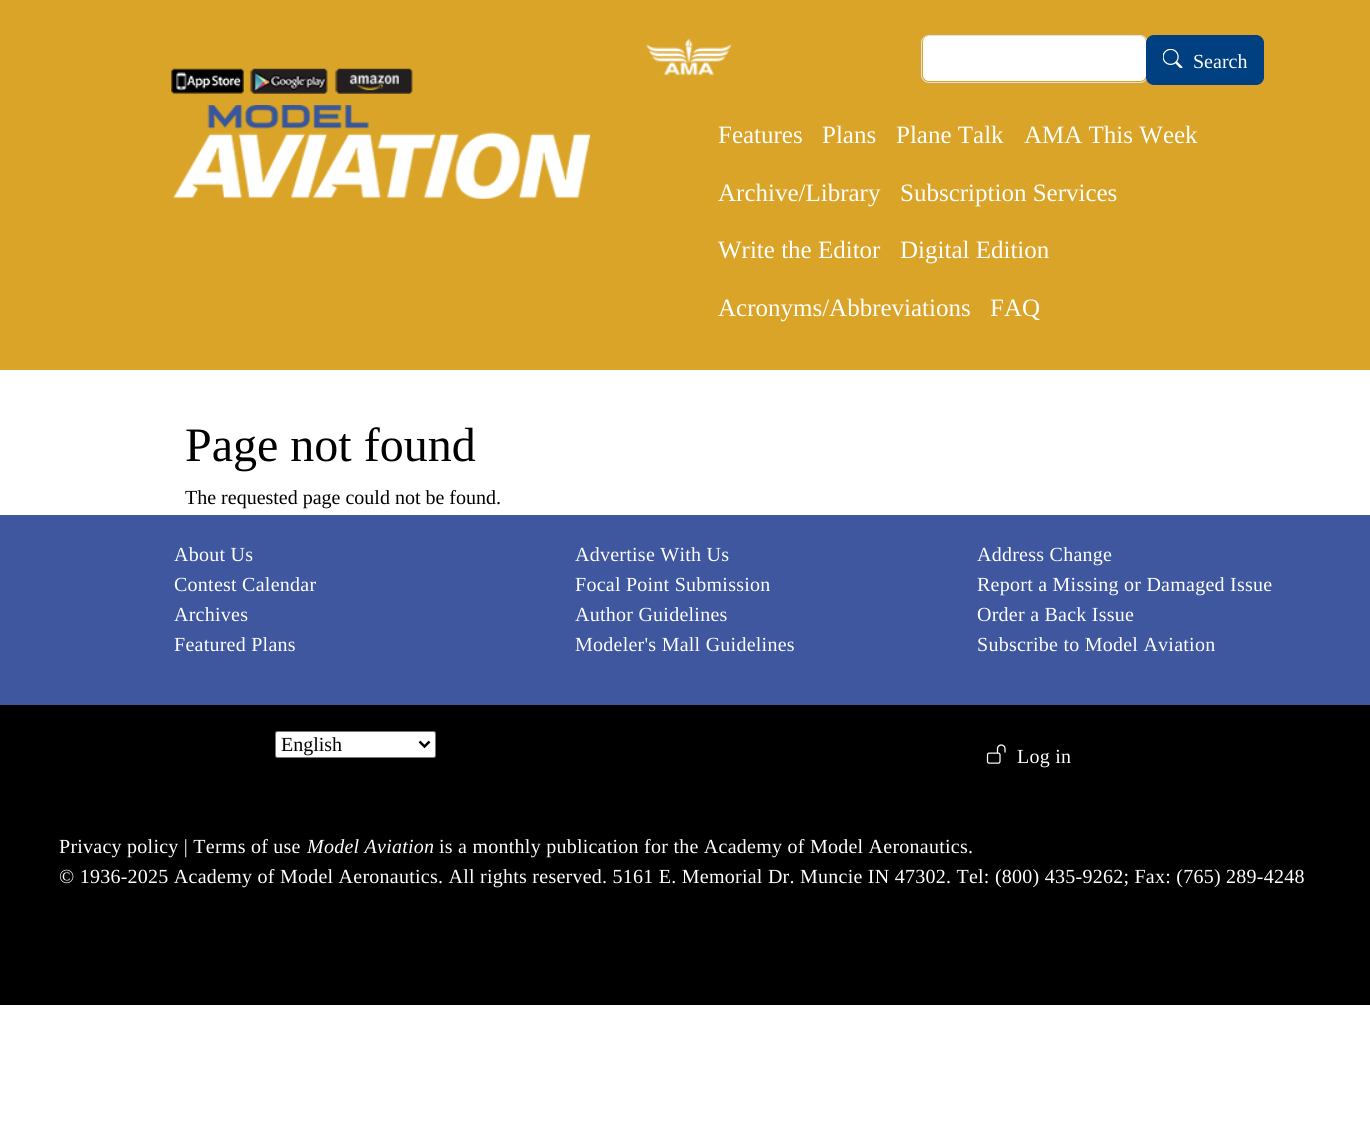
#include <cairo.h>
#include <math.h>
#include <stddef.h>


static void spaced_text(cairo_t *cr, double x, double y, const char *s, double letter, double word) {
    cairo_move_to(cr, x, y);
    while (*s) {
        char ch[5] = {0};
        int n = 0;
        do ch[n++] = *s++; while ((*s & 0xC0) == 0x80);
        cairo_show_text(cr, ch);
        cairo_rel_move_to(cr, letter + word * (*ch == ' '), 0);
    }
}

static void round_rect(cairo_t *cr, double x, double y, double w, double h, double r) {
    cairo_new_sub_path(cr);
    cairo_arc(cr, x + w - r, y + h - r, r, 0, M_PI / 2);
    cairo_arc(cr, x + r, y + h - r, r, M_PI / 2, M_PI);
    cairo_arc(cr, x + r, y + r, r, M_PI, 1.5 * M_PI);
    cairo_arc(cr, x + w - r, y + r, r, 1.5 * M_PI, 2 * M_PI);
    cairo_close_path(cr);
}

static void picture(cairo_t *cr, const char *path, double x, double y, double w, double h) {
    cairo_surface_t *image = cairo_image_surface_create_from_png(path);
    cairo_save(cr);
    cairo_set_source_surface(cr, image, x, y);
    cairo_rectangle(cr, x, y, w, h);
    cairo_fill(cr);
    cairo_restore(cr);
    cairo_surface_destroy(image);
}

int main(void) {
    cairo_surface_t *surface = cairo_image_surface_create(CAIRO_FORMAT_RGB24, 1370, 1126);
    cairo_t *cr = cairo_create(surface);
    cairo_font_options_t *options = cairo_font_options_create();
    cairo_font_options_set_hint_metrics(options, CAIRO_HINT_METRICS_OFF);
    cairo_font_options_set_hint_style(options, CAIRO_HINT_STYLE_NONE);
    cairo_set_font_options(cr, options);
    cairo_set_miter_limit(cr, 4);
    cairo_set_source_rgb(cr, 1, 1, 1);
    cairo_paint(cr);
    cairo_set_source_rgb(cr, 0.855, 0.643, 0.157);
    cairo_rectangle(cr, 0, 0, 1370, 370);
    cairo_fill(cr);
    picture(cr, "img1.png", 646, 38, 86, 38);
    cairo_set_source_rgb(cr, 1, 1, 1);
    round_rect(cr, 923, 36, 223, 45, 6);
    cairo_fill(cr);
    round_rect(cr, 921.5, 35.5, 226, 47, 7.5);
    cairo_set_source_rgb(cr, 0.871, 0.886, 0.902);
    cairo_set_line_width(cr, 1);
    cairo_stroke(cr);
    cairo_set_source_rgb(cr, 0, 0.251, 0.502);
    round_rect(cr, 1146.5, 35.5, 117, 49, 7.5);
    cairo_fill_preserve(cr);
    cairo_stroke(cr);
    picture(cr, "img2.png", 1163, 49, 20, 19);
    cairo_select_font_face(cr, "Liberation Serif", CAIRO_FONT_SLANT_NORMAL, CAIRO_FONT_WEIGHT_NORMAL);
    cairo_set_font_size(cr, 20);
    cairo_set_source_rgb(cr, 1, 1, 1);
    cairo_move_to(cr, 1193, 68);
    cairo_show_text(cr, "Search");
    picture(cr, "img3.png", 171, 68, 73, 26);
    picture(cr, "img4.png", 249, 68, 79, 26);
    picture(cr, "img5.png", 334, 68, 79, 26);
    picture(cr, "img6.png", 173, 105, 418, 94);
    cairo_set_font_size(cr, 25);
    cairo_move_to(cr, 718, 143);
    cairo_show_text(cr, "Features");
    cairo_move_to(cr, 822, 143);
    cairo_show_text(cr, "Plans");
    cairo_move_to(cr, 896, 143);
    cairo_show_text(cr, "Plane Talk");
    cairo_move_to(cr, 1024, 143);
    cairo_show_text(cr, "AMA This Week");
    cairo_move_to(cr, 718, 201);
    cairo_show_text(cr, "Archive/Library");
    cairo_move_to(cr, 900, 201);
    cairo_show_text(cr, "Subscription Services");
    cairo_move_to(cr, 718, 258);
    cairo_show_text(cr, "Write the Editor");
    cairo_move_to(cr, 900, 258);
    cairo_show_text(cr, "Digital Edition");
    cairo_move_to(cr, 718, 316);
    cairo_show_text(cr, "Acronyms/Abbreviations");
    cairo_move_to(cr, 990, 316);
    cairo_show_text(cr, "FAQ");
    cairo_set_font_size(cr, 48);
    cairo_set_source_rgb(cr, 0, 0, 0);
    cairo_move_to(cr, 185, 461);
    cairo_show_text(cr, "Page not found");
    cairo_set_font_size(cr, 20);
    cairo_move_to(cr, 185, 504);
    cairo_show_text(cr, "The requested page could not be found.");
    cairo_set_source_rgb(cr, 0.247, 0.341, 0.624);
    cairo_rectangle(cr, 0, 515, 1370, 190);
    cairo_fill(cr);
    cairo_set_source_rgb(cr, 1, 1, 1);
    spaced_text(cr, 174, 561, "About Us", 0.25, 0);
    spaced_text(cr, 174, 591, "Contest Calendar", 0.25, 0);
    spaced_text(cr, 174, 621, "Archives", 0.25, 0);
    spaced_text(cr, 174, 651, "Featured Plans", 0.25, 0);
    spaced_text(cr, 575, 561, "Advertise With Us", 0.25, 0);
    spaced_text(cr, 575, 591, "Focal Point Submission", 0.25, 0);
    spaced_text(cr, 575, 621, "Author Guidelines", 0.25, 0);
    spaced_text(cr, 575, 651, "Modeler's Mall Guidelines", 0.25, 0);
    spaced_text(cr, 977, 561, "Address Change", 0.25, 0);
    spaced_text(cr, 977, 591, "Report a Missing or Damaged Issue", 0.25, 0);
    spaced_text(cr, 977, 621, "Order a Back Issue", 0.25, 0);
    spaced_text(cr, 977, 651, "Subscribe to Model Aviation", 0.25, 0);
    cairo_set_source_rgb(cr, 0, 0, 0);
    cairo_rectangle(cr, 0, 705, 1370, 300);
    cairo_fill(cr);
    cairo_set_source_rgb(cr, 1, 1, 1);
    round_rect(cr, 275.5, 731.5, 160, 26, 2);
    cairo_fill_preserve(cr);
    cairo_set_source_rgb(cr, 0.463, 0.463, 0.463);
    cairo_stroke(cr);
    cairo_new_path(cr);
    cairo_move_to(cr, 419.5, 741.5);
    cairo_line_to(cr, 424.5, 746.5);
    cairo_line_to(cr, 429.5, 741.5);
    cairo_set_source_rgb(cr, 0, 0, 0);
    cairo_set_line_width(cr, 2.5);
    cairo_stroke(cr);
    cairo_move_to(cr, 281, 751);
    cairo_show_text(cr, "English");
    picture(cr, "img7.png", 986, 744, 20, 20);
    cairo_set_source_rgb(cr, 1, 1, 1);
    spaced_text(cr, 1017, 763, "Log in", 0.25, 0);
    spaced_text(cr, 59, 853, "Privacy policy | Terms of use", 0.25, 0);
    cairo_select_font_face(cr, "Liberation Serif", CAIRO_FONT_SLANT_ITALIC, CAIRO_FONT_WEIGHT_NORMAL);
    spaced_text(cr, 307, 853, "Model Aviation", 0.25, 0);
    cairo_select_font_face(cr, "Liberation Serif", CAIRO_FONT_SLANT_NORMAL, CAIRO_FONT_WEIGHT_NORMAL);
    spaced_text(cr, 439, 853, "is a monthly publication for the Academy of Model Aeronautics.", 0.25, 0);
    spaced_text(cr, 59, 883, "© 1936-2025 Academy of Model Aeronautics. All rights reserved. 5161 E. Memorial Dr. Muncie IN 47302. Tel: (800) 435-9262; Fax: (765) 289-4248", 0.25, 0);
    cairo_surface_write_to_png(surface, "page.png");
    cairo_font_options_destroy(options);
    cairo_destroy(cr);
    cairo_surface_destroy(surface);
    return 0;
}
